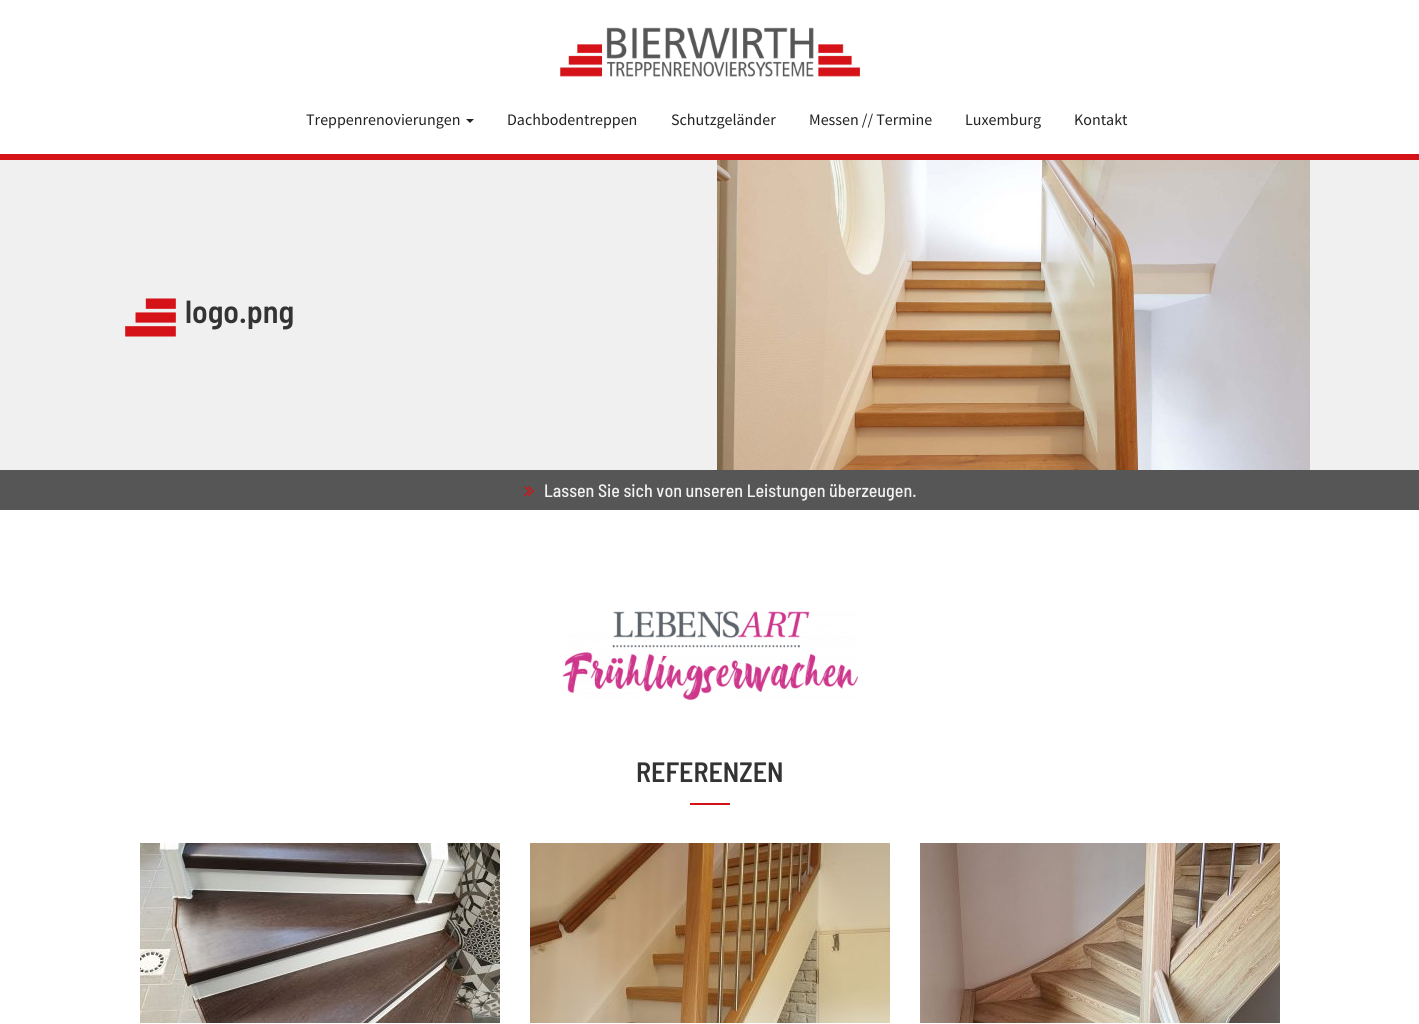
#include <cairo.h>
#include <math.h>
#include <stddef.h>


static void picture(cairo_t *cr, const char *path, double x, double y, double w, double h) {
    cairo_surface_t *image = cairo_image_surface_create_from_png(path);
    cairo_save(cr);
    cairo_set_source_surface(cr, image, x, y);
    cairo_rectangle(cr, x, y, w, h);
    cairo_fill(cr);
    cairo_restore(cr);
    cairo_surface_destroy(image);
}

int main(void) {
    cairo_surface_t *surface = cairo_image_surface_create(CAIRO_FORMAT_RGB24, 1419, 1024);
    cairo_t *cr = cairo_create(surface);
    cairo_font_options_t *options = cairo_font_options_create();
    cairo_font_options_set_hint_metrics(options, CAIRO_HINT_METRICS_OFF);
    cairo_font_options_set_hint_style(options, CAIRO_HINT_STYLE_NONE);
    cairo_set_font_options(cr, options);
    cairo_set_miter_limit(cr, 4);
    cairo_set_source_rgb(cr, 1, 1, 1);
    cairo_paint(cr);
    picture(cr, "img1.png", 560, 27, 300, 50);
    cairo_select_font_face(cr, "Source Sans Pro", CAIRO_FONT_SLANT_NORMAL, CAIRO_FONT_WEIGHT_NORMAL);
    cairo_set_font_size(cr, 16);
    cairo_set_source_rgb(cr, 0.133, 0.133, 0.133);
    cairo_move_to(cr, 306, 125);
    cairo_show_text(cr, "Treppenrenovierungen");
    cairo_new_path(cr);
    cairo_move_to(cr, 466, 119);
    cairo_line_to(cr, 474, 119);
    cairo_line_to(cr, 470, 123);
    cairo_close_path(cr);
    cairo_fill(cr);
    cairo_move_to(cr, 507, 125);
    cairo_show_text(cr, "Dachbodentreppen");
    cairo_move_to(cr, 671, 125);
    cairo_show_text(cr, "Schutzgeländer");
    cairo_move_to(cr, 809, 125);
    cairo_show_text(cr, "Messen // Termine");
    cairo_move_to(cr, 965, 125);
    cairo_show_text(cr, "Luxemburg");
    cairo_move_to(cr, 1074, 125);
    cairo_show_text(cr, "Kontakt");
    cairo_set_source_rgb(cr, 0.831, 0.071, 0.09);
    cairo_rectangle(cr, 0, 154, 1419, 6);
    cairo_fill(cr);
    cairo_set_source_rgb(cr, 0.941, 0.941, 0.941);
    cairo_rectangle(cr, 0, 160, 1419, 310);
    cairo_fill(cr);
    picture(cr, "img2.png", 125, 298, 51, 39);
    cairo_select_font_face(cr, "Barlow Semi Condensed SemiBold", CAIRO_FONT_SLANT_NORMAL, CAIRO_FONT_WEIGHT_NORMAL);
    cairo_set_font_size(cr, 32);
    cairo_set_source_rgb(cr, 0.2, 0.2, 0.2);
    cairo_move_to(cr, 185, 323);
    cairo_show_text(cr, "logo.png");
    picture(cr, "img3.png", 717, 160, 593, 310);
    cairo_set_source_rgb(cr, 0.341, 0.337, 0.337);
    cairo_rectangle(cr, 0, 470, 1419, 40);
    cairo_fill(cr);
    picture(cr, "img4.png", 524, 486, 10, 11);
    cairo_select_font_face(cr, "Barlow Semi Condensed Medium", CAIRO_FONT_SLANT_NORMAL, CAIRO_FONT_WEIGHT_NORMAL);
    cairo_set_font_size(cr, 18);
    cairo_set_source_rgb(cr, 0.949, 0.949, 0.949);
    cairo_move_to(cr, 544, 497);
    cairo_show_text(cr, "Lassen Sie sich von unseren Leistungen überzeugen.");
    picture(cr, "img5.png", 562, 611, 296, 89);
    cairo_select_font_face(cr, "Barlow Semi Condensed SemiBold", CAIRO_FONT_SLANT_NORMAL, CAIRO_FONT_WEIGHT_NORMAL);
    cairo_set_font_size(cr, 28);
    cairo_set_source_rgb(cr, 0.2, 0.2, 0.2);
    cairo_move_to(cr, 636, 782);
    cairo_show_text(cr, "REFERENZEN");
    cairo_set_source_rgb(cr, 0.831, 0.071, 0.09);
    cairo_rectangle(cr, 690, 803, 40, 2);
    cairo_fill(cr);
    picture(cr, "img6.png", 140, 843, 360, 180);
    picture(cr, "img7.png", 530, 843, 360, 180);
    picture(cr, "img8.png", 920, 843, 360, 180);
    cairo_surface_write_to_png(surface, "page.png");
    cairo_font_options_destroy(options);
    cairo_destroy(cr);
    cairo_surface_destroy(surface);
    return 0;
}
